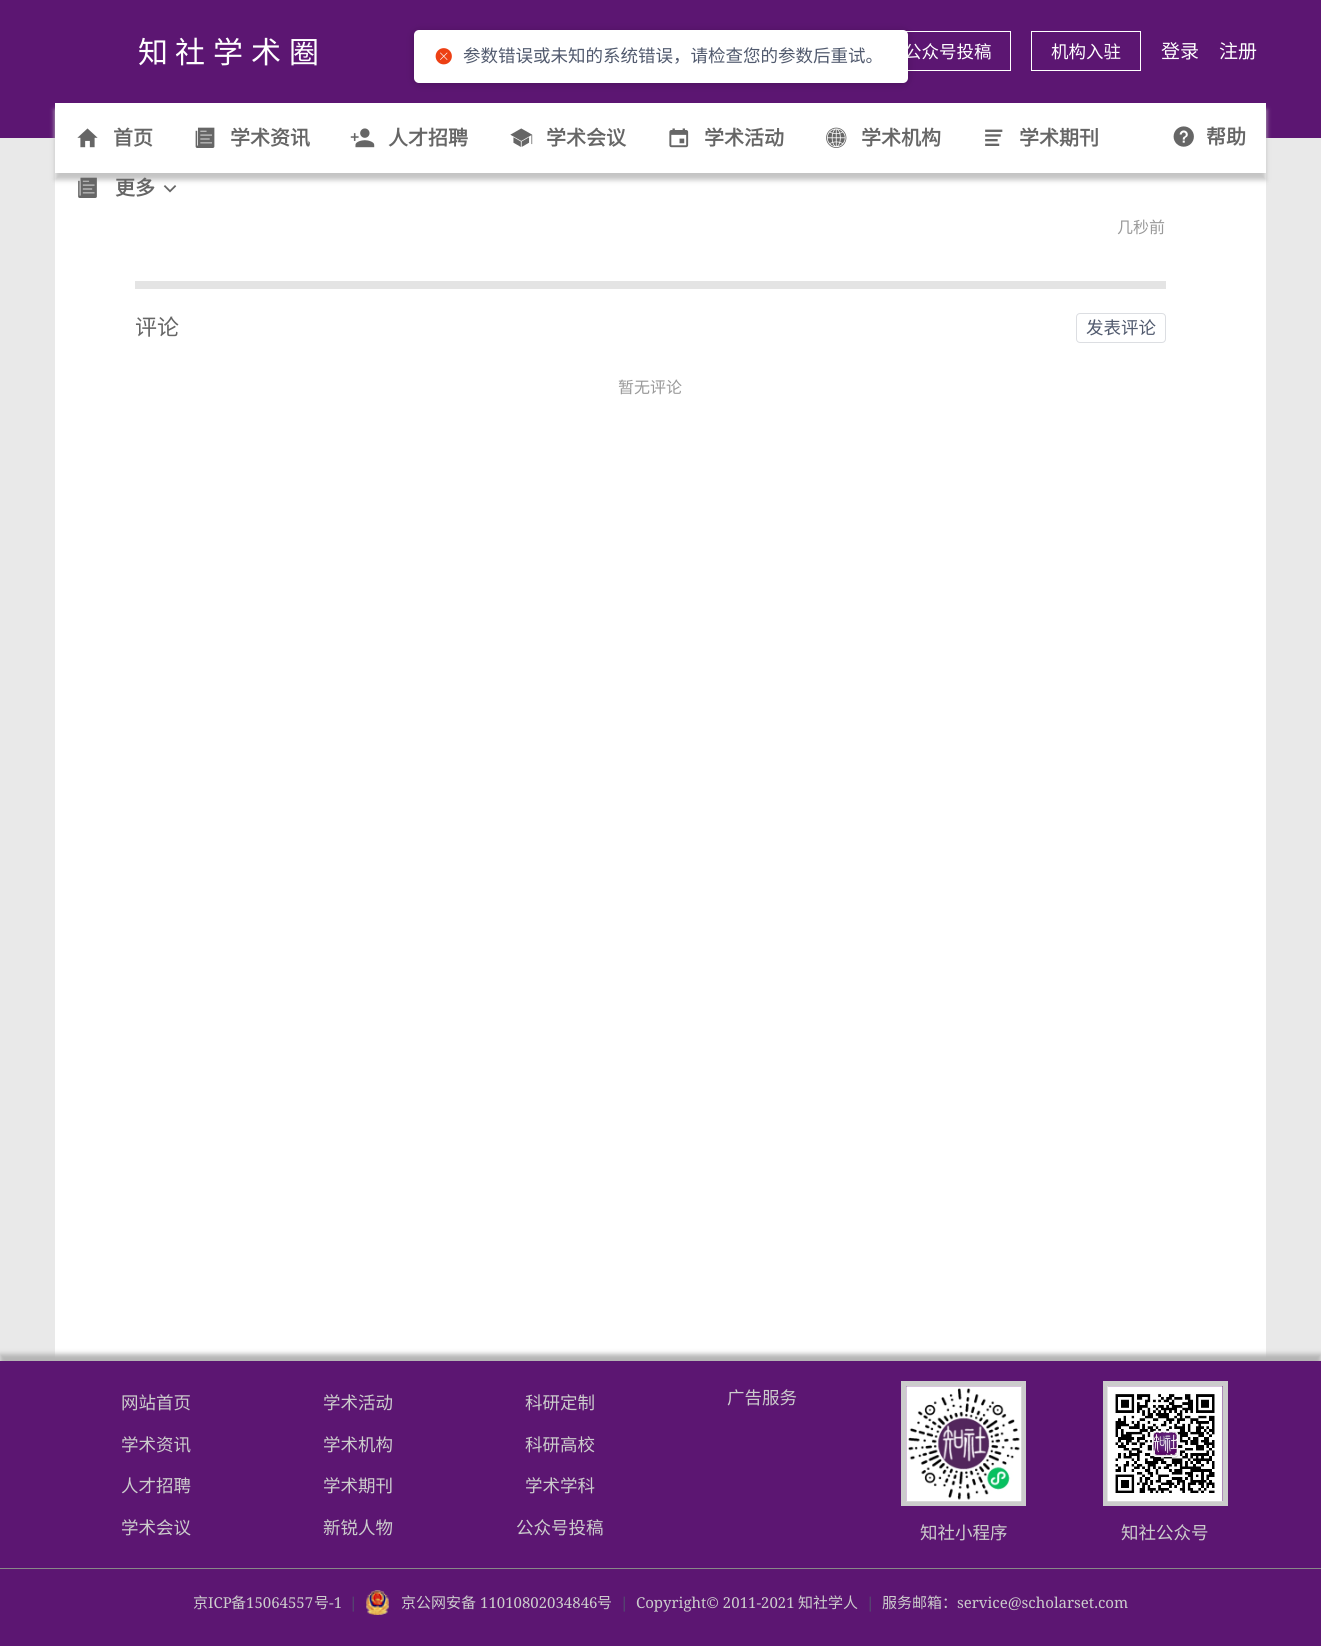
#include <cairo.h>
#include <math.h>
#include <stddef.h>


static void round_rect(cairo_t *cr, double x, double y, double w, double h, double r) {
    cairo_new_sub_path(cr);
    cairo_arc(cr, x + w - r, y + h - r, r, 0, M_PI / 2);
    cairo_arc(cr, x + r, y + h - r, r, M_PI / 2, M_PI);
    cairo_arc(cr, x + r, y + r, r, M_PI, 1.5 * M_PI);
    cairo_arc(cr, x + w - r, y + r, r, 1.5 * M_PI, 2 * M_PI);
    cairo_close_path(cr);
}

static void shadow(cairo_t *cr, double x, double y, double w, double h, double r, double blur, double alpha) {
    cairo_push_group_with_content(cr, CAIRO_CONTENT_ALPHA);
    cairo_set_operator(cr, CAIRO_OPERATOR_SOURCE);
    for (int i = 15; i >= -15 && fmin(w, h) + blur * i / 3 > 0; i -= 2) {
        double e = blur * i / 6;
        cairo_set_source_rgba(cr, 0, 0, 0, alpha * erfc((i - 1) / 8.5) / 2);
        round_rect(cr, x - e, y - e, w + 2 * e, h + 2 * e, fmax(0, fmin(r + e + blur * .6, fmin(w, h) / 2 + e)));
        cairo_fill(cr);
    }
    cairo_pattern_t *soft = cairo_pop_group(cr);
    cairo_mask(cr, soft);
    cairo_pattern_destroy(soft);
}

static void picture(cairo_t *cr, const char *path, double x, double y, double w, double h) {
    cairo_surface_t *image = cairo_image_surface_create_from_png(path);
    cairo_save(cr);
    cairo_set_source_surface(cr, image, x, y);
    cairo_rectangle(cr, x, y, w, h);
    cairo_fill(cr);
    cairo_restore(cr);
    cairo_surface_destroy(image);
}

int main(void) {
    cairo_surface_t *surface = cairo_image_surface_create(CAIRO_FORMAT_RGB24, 1321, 1646);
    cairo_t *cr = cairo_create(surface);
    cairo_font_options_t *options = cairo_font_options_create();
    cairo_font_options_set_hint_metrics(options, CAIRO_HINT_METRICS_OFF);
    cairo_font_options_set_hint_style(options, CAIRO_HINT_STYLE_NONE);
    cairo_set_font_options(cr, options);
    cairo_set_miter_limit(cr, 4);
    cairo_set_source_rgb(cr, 0.914, 0.914, 0.914);
    cairo_paint(cr);
    cairo_set_source_rgb(cr, 0.361, 0.086, 0.447);
    cairo_rectangle(cr, 0, 0, 1321, 138);
    cairo_fill(cr);
    cairo_select_font_face(cr, "Noto Sans CJK SC", CAIRO_FONT_SLANT_NORMAL, CAIRO_FONT_WEIGHT_NORMAL);
    cairo_set_font_size(cr, 30);
    cairo_set_source_rgb(cr, 1, 1, 1);
    cairo_move_to(cr, 138, 63);
    cairo_show_text(cr, "知");
    cairo_move_to(cr, 175, 63);
    cairo_show_text(cr, "社");
    cairo_move_to(cr, 213, 63);
    cairo_show_text(cr, "学");
    cairo_move_to(cr, 251, 63);
    cairo_show_text(cr, "术");
    cairo_move_to(cr, 289, 63);
    cairo_show_text(cr, "圈");
    cairo_rectangle(cr, 884.5, 31.5, 126, 39);
    cairo_set_line_width(cr, 1);
    cairo_stroke(cr);
    cairo_set_font_size(cr, 17.5);
    cairo_move_to(cr, 904, 58);
    cairo_show_text(cr, "公众号投稿");
    cairo_rectangle(cr, 1031.5, 31.5, 109, 39);
    cairo_stroke(cr);
    cairo_move_to(cr, 1051, 58);
    cairo_show_text(cr, "机构入驻");
    cairo_set_font_size(cr, 19);
    cairo_move_to(cr, 1161, 58);
    cairo_show_text(cr, "登录");
    cairo_move_to(cr, 1219, 58);
    cairo_show_text(cr, "注册");
    cairo_rectangle(cr, 55, 173, 1211, 1187);
    cairo_fill(cr);
    cairo_set_source_rgb(cr, 0.769, 0.769, 0.769);
    shadow(cr, 55, 110, 1211, 70, 0, 2.5, 1);
    cairo_set_source_rgb(cr, 1, 1, 1);
    cairo_rectangle(cr, 55, 103, 1211, 70);
    cairo_fill(cr);
    picture(cr, "img1.png", 77, 128, 21, 20);
    cairo_select_font_face(cr, "Noto Sans CJK SC", CAIRO_FONT_SLANT_NORMAL, CAIRO_FONT_WEIGHT_BOLD);
    cairo_set_font_size(cr, 20);
    cairo_set_source_rgb(cr, 0.4, 0.4, 0.4);
    cairo_move_to(cr, 113, 145);
    cairo_show_text(cr, "首页");
    picture(cr, "img2.png", 195, 127, 20, 21);
    cairo_move_to(cr, 230, 145);
    cairo_show_text(cr, "学术资讯");
    picture(cr, "img3.png", 350, 128, 25, 20);
    cairo_move_to(cr, 388, 145);
    cairo_show_text(cr, "人才招聘");
    picture(cr, "img4.png", 510, 128, 23, 19);
    cairo_move_to(cr, 546, 145);
    cairo_show_text(cr, "学术会议");
    picture(cr, "img5.png", 669, 128, 20, 20);
    cairo_move_to(cr, 704, 145);
    cairo_show_text(cr, "学术活动");
    picture(cr, "img6.png", 826, 127, 21, 21);
    cairo_move_to(cr, 861, 145);
    cairo_show_text(cr, "学术机构");
    picture(cr, "img7.png", 985, 129, 18, 17);
    cairo_move_to(cr, 1019, 145);
    cairo_show_text(cr, "学术期刊");
    picture(cr, "img8.png", 78, 177, 19, 21);
    cairo_move_to(cr, 115, 195);
    cairo_show_text(cr, "更多");
    picture(cr, "img9.png", 163, 185, 14, 8);
    picture(cr, "img10.png", 1173, 126, 21, 21);
    cairo_move_to(cr, 1206, 144);
    cairo_show_text(cr, "帮助");
    cairo_select_font_face(cr, "Noto Sans CJK SC", CAIRO_FONT_SLANT_NORMAL, CAIRO_FONT_WEIGHT_NORMAL);
    cairo_set_font_size(cr, 16);
    cairo_set_source_rgb(cr, 0.6, 0.6, 0.6);
    cairo_move_to(cr, 1117, 233);
    cairo_show_text(cr, "几秒前");
    cairo_set_source_rgb(cr, 0.894, 0.894, 0.894);
    cairo_rectangle(cr, 135, 281, 1031, 8);
    cairo_fill(cr);
    cairo_set_font_size(cr, 22);
    cairo_set_source_rgb(cr, 0.4, 0.4, 0.4);
    cairo_move_to(cr, 135, 335);
    cairo_show_text(cr, "评论");
    round_rect(cr, 1076.5, 313.5, 89, 29, 3.5);
    cairo_set_source_rgb(cr, 0.863, 0.871, 0.886);
    cairo_stroke(cr);
    cairo_set_font_size(cr, 17.5);
    cairo_set_source_rgb(cr, 0.318, 0.353, 0.431);
    cairo_move_to(cr, 1086, 334);
    cairo_show_text(cr, "发表评论");
    cairo_set_font_size(cr, 16);
    cairo_set_source_rgb(cr, 0.6, 0.6, 0.6);
    cairo_move_to(cr, 618, 393);
    cairo_show_text(cr, "暂无评论");
    cairo_set_source_rgb(cr, 0.706, 0.706, 0.706);
    shadow(cr, 0, 1354, 1321, 285, 0, 2.5, 1);
    cairo_set_source_rgb(cr, 0.361, 0.086, 0.447);
    cairo_rectangle(cr, 0, 1361, 1321, 285);
    cairo_fill(cr);
    cairo_set_font_size(cr, 17.5);
    cairo_set_source_rgb(cr, 0.8, 0.8, 0.8);
    cairo_move_to(cr, 121, 1409);
    cairo_show_text(cr, "网站首页");
    cairo_move_to(cr, 121, 1451);
    cairo_show_text(cr, "学术资讯");
    cairo_move_to(cr, 121, 1492);
    cairo_show_text(cr, "人才招聘");
    cairo_move_to(cr, 121, 1534);
    cairo_show_text(cr, "学术会议");
    cairo_move_to(cr, 323, 1409);
    cairo_show_text(cr, "学术活动");
    cairo_move_to(cr, 323, 1451);
    cairo_show_text(cr, "学术机构");
    cairo_move_to(cr, 323, 1492);
    cairo_show_text(cr, "学术期刊");
    cairo_move_to(cr, 323, 1534);
    cairo_show_text(cr, "新锐人物");
    cairo_move_to(cr, 525, 1409);
    cairo_show_text(cr, "科研定制");
    cairo_move_to(cr, 525, 1451);
    cairo_show_text(cr, "科研高校");
    cairo_move_to(cr, 525, 1492);
    cairo_show_text(cr, "学术学科");
    cairo_move_to(cr, 516, 1534);
    cairo_show_text(cr, "公众号投稿");
    cairo_move_to(cr, 727, 1404);
    cairo_show_text(cr, "广告服务");
    cairo_rectangle(cr, 903.5, 1383.5, 120, 120);
    cairo_set_line_width(cr, 5);
    cairo_stroke(cr);
    picture(cr, "img11.png", 906, 1386, 116, 116);
    cairo_move_to(cr, 920, 1539);
    cairo_show_text(cr, "知社小程序");
    cairo_rectangle(cr, 1105.5, 1383.5, 120, 120);
    cairo_stroke(cr);
    picture(cr, "img12.png", 1107, 1386, 116, 116);
    cairo_move_to(cr, 1121, 1539);
    cairo_show_text(cr, "知社公众号");
    cairo_set_source_rgb(cr, 0.533, 0.533, 0.533);
    cairo_rectangle(cr, 0, 1568, 1321, 1);
    cairo_fill(cr);
    cairo_set_font_size(cr, 15);
    cairo_set_source_rgb(cr, 0.8, 0.8, 0.8);
    cairo_move_to(cr, 193, 1608);
    cairo_show_text(cr, "京");
    cairo_select_font_face(cr, "Noto Serif", CAIRO_FONT_SLANT_NORMAL, CAIRO_FONT_WEIGHT_NORMAL);
    cairo_move_to(cr, 208, 1608);
    cairo_show_text(cr, "ICP");
    cairo_select_font_face(cr, "Noto Sans CJK SC", CAIRO_FONT_SLANT_NORMAL, CAIRO_FONT_WEIGHT_NORMAL);
    cairo_move_to(cr, 231, 1608);
    cairo_show_text(cr, "备");
    cairo_select_font_face(cr, "Noto Serif", CAIRO_FONT_SLANT_NORMAL, CAIRO_FONT_WEIGHT_NORMAL);
    cairo_move_to(cr, 246, 1608);
    cairo_show_text(cr, "15064557");
    cairo_select_font_face(cr, "Noto Sans CJK SC", CAIRO_FONT_SLANT_NORMAL, CAIRO_FONT_WEIGHT_NORMAL);
    cairo_move_to(cr, 314, 1608);
    cairo_show_text(cr, "号");
    cairo_select_font_face(cr, "Noto Serif", CAIRO_FONT_SLANT_NORMAL, CAIRO_FONT_WEIGHT_NORMAL);
    cairo_move_to(cr, 329, 1608);
    cairo_show_text(cr, "-1");
    cairo_set_source_rgb(cr, 0.318, 0.353, 0.431);
    cairo_move_to(cr, 349, 1608);
    cairo_show_text(cr, "|");
    picture(cr, "img13.png", 366, 1590, 23, 25);
    cairo_select_font_face(cr, "Noto Sans CJK SC", CAIRO_FONT_SLANT_NORMAL, CAIRO_FONT_WEIGHT_NORMAL);
    cairo_set_source_rgb(cr, 0.8, 0.8, 0.8);
    cairo_move_to(cr, 401, 1608);
    cairo_show_text(cr, "京公网安备");
    cairo_select_font_face(cr, "Noto Serif", CAIRO_FONT_SLANT_NORMAL, CAIRO_FONT_WEIGHT_NORMAL);
    cairo_move_to(cr, 480, 1608);
    cairo_show_text(cr, "11010802034846");
    cairo_select_font_face(cr, "Noto Sans CJK SC", CAIRO_FONT_SLANT_NORMAL, CAIRO_FONT_WEIGHT_NORMAL);
    cairo_move_to(cr, 597, 1608);
    cairo_show_text(cr, "号");
    cairo_select_font_face(cr, "Noto Serif", CAIRO_FONT_SLANT_NORMAL, CAIRO_FONT_WEIGHT_NORMAL);
    cairo_set_source_rgb(cr, 0.318, 0.353, 0.431);
    cairo_move_to(cr, 620, 1608);
    cairo_show_text(cr, "|");
    cairo_set_source_rgb(cr, 0.8, 0.8, 0.8);
    cairo_move_to(cr, 636, 1608);
    cairo_show_text(cr, "Copyright© 2011-2021");
    cairo_select_font_face(cr, "Noto Sans CJK SC", CAIRO_FONT_SLANT_NORMAL, CAIRO_FONT_WEIGHT_NORMAL);
    cairo_move_to(cr, 798, 1608);
    cairo_show_text(cr, "知社学人");
    cairo_select_font_face(cr, "Noto Serif", CAIRO_FONT_SLANT_NORMAL, CAIRO_FONT_WEIGHT_NORMAL);
    cairo_set_source_rgb(cr, 0.318, 0.353, 0.431);
    cairo_move_to(cr, 866, 1608);
    cairo_show_text(cr, "|");
    cairo_select_font_face(cr, "Noto Sans CJK SC", CAIRO_FONT_SLANT_NORMAL, CAIRO_FONT_WEIGHT_NORMAL);
    cairo_set_source_rgb(cr, 0.8, 0.8, 0.8);
    cairo_move_to(cr, 882, 1608);
    cairo_show_text(cr, "服务邮箱：");
    cairo_select_font_face(cr, "Noto Serif", CAIRO_FONT_SLANT_NORMAL, CAIRO_FONT_WEIGHT_NORMAL);
    cairo_move_to(cr, 957, 1608);
    cairo_show_text(cr, "service@scholarset.com");
    cairo_set_source_rgb(cr, 0, 0, 0);
    shadow(cr, 414, 31, 494, 53, 5, 4, 0.2);
    cairo_set_source_rgb(cr, 1, 1, 1);
    round_rect(cr, 414, 30, 494, 53, 5);
    cairo_fill(cr);
    picture(cr, "img14.png", 435, 48, 17, 17);
    cairo_select_font_face(cr, "Noto Sans CJK SC", CAIRO_FONT_SLANT_NORMAL, CAIRO_FONT_WEIGHT_NORMAL);
    cairo_set_font_size(cr, 17.5);
    cairo_set_source_rgb(cr, 0.318, 0.353, 0.431);
    cairo_move_to(cr, 463, 62);
    cairo_show_text(cr, "参数错误或未知的系统错误，请检查您的参数后重试。");
    cairo_surface_write_to_png(surface, "page.png");
    cairo_font_options_destroy(options);
    cairo_destroy(cr);
    cairo_surface_destroy(surface);
    return 0;
}
